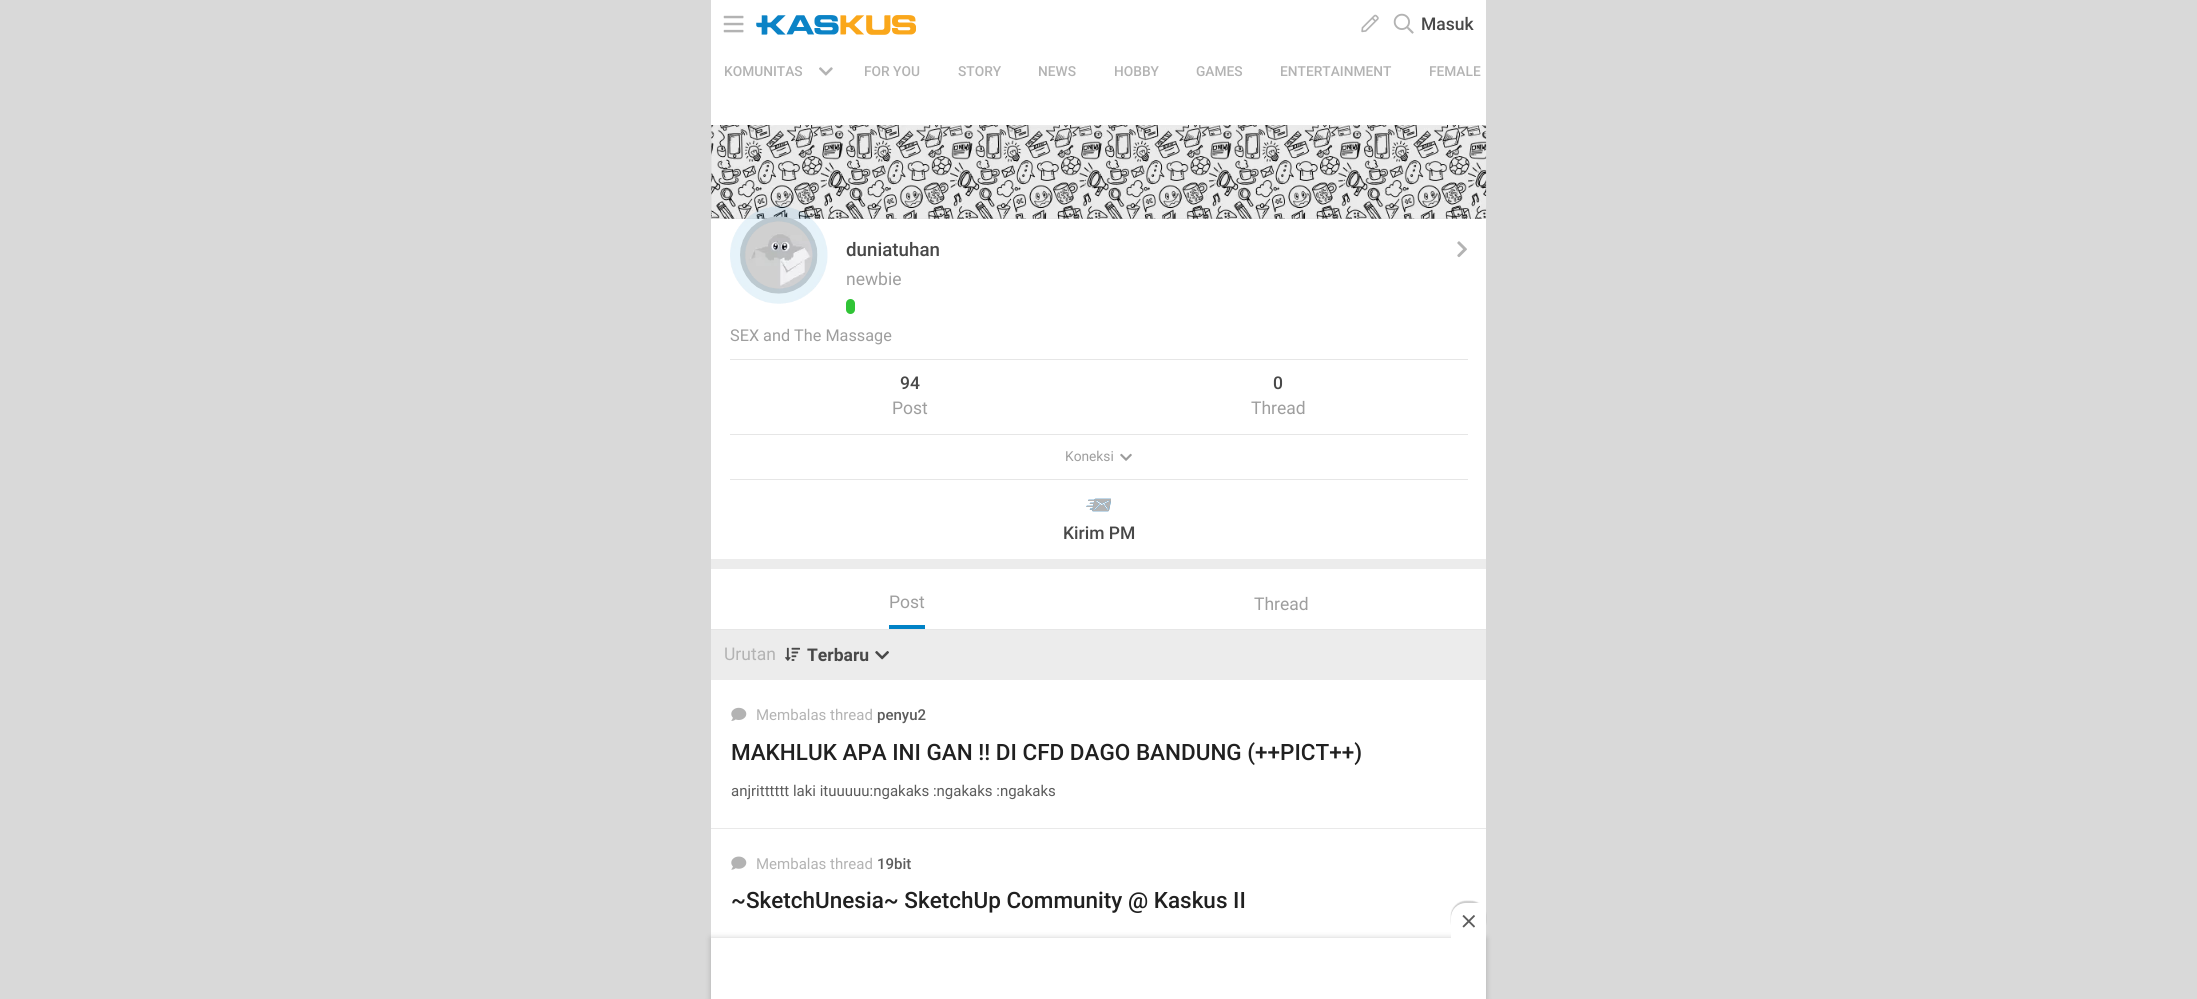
#include <cairo.h>
#include <math.h>
#include <stddef.h>


static void round_rect(cairo_t *cr, double x, double y, double w, double h, double r) {
    cairo_new_sub_path(cr);
    cairo_arc(cr, x + w - r, y + h - r, r, 0, M_PI / 2);
    cairo_arc(cr, x + r, y + h - r, r, M_PI / 2, M_PI);
    cairo_arc(cr, x + r, y + r, r, M_PI, 1.5 * M_PI);
    cairo_arc(cr, x + w - r, y + r, r, 1.5 * M_PI, 2 * M_PI);
    cairo_close_path(cr);
}

static void shadow(cairo_t *cr, double x, double y, double w, double h, double r, double blur, double alpha) {
    cairo_push_group_with_content(cr, CAIRO_CONTENT_ALPHA);
    cairo_set_operator(cr, CAIRO_OPERATOR_SOURCE);
    for (int i = 15; i >= -15 && fmin(w, h) + blur * i / 3 > 0; i -= 2) {
        double e = blur * i / 6;
        cairo_set_source_rgba(cr, 0, 0, 0, alpha * erfc((i - 1) / 8.5) / 2);
        round_rect(cr, x - e, y - e, w + 2 * e, h + 2 * e, fmax(0, fmin(r + e + blur * .6, fmin(w, h) / 2 + e)));
        cairo_fill(cr);
    }
    cairo_pattern_t *soft = cairo_pop_group(cr);
    cairo_mask(cr, soft);
    cairo_pattern_destroy(soft);
}

static void picture(cairo_t *cr, const char *path, double x, double y, double w, double h) {
    cairo_surface_t *image = cairo_image_surface_create_from_png(path);
    cairo_save(cr);
    cairo_set_source_surface(cr, image, x, y);
    cairo_rectangle(cr, x, y, w, h);
    cairo_fill(cr);
    cairo_restore(cr);
    cairo_surface_destroy(image);
}

int main(void) {
    cairo_surface_t *surface = cairo_image_surface_create(CAIRO_FORMAT_RGB24, 2197, 999);
    cairo_t *cr = cairo_create(surface);
    cairo_font_options_t *options = cairo_font_options_create();
    cairo_font_options_set_hint_metrics(options, CAIRO_HINT_METRICS_OFF);
    cairo_font_options_set_hint_style(options, CAIRO_HINT_STYLE_NONE);
    cairo_set_font_options(cr, options);
    cairo_set_miter_limit(cr, 4);
    cairo_set_source_rgb(cr, 0.851, 0.851, 0.851);
    cairo_paint(cr);
    cairo_set_source_rgb(cr, 1, 1, 1);
    cairo_rectangle(cr, 711, 0, 775, 938);
    cairo_fill(cr);
    picture(cr, "img1.png", 723, 15, 21, 18);
    picture(cr, "img2.png", 756, 15, 160, 20);
    picture(cr, "img3.png", 1361, 14, 18, 19);
    picture(cr, "img4.png", 1393, 13, 21, 21);
    cairo_select_font_face(cr, "Roboto Medium", CAIRO_FONT_SLANT_NORMAL, CAIRO_FONT_WEIGHT_NORMAL);
    cairo_set_font_size(cr, 17.5);
    cairo_set_source_rgb(cr, 0.282, 0.282, 0.282);
    cairo_move_to(cr, 1421, 30);
    cairo_show_text(cr, "Masuk");
    cairo_set_font_size(cr, 13.75);
    cairo_set_source_rgb(cr, 0.702, 0.702, 0.702);
    cairo_move_to(cr, 724, 76);
    cairo_show_text(cr, "KOMUNITAS");
    picture(cr, "img5.png", 819, 67, 14, 9);
    cairo_move_to(cr, 864, 76);
    cairo_show_text(cr, "FOR YOU");
    cairo_move_to(cr, 958, 76);
    cairo_show_text(cr, "STORY");
    cairo_move_to(cr, 1038, 76);
    cairo_show_text(cr, "NEWS");
    cairo_move_to(cr, 1114, 76);
    cairo_show_text(cr, "HOBBY");
    cairo_move_to(cr, 1196, 76);
    cairo_show_text(cr, "GAMES");
    cairo_move_to(cr, 1280, 76);
    cairo_show_text(cr, "ENTERTAINMENT");
    cairo_move_to(cr, 1429, 76);
    cairo_show_text(cr, "FEMALE");
    cairo_set_source_rgb(cr, 0.847, 0.847, 0.847);
    cairo_rectangle(cr, 711, 125, 775, 94);
    cairo_fill(cr);
    picture(cr, "img6.png", 711, 125, 776, 94);
    picture(cr, "img8.png", 740, 216, 78, 78);
    picture(cr, "img7.png", 730, 206, 98, 98);
    cairo_set_font_size(cr, 18.75);
    cairo_set_source_rgb(cr, 0.282, 0.282, 0.282);
    cairo_move_to(cr, 846, 256);
    cairo_show_text(cr, "duniatuhan");
    cairo_select_font_face(cr, "Roboto", CAIRO_FONT_SLANT_NORMAL, CAIRO_FONT_WEIGHT_NORMAL);
    cairo_set_font_size(cr, 17.5);
    cairo_set_source_rgb(cr, 0.62, 0.62, 0.62);
    cairo_move_to(cr, 846, 285);
    cairo_show_text(cr, "newbie");
    cairo_set_source_rgb(cr, 0.188, 0.769, 0.212);
    round_rect(cr, 846, 299, 9, 15, 4.5);
    cairo_fill(cr);
    picture(cr, "img9.png", 1457, 241, 10, 17);
    cairo_set_source_rgb(cr, 0.922, 0.922, 0.922);
    cairo_rectangle(cr, 711, 559, 775, 10);
    cairo_fill(cr);
    cairo_set_font_size(cr, 16.25);
    cairo_set_source_rgb(cr, 0.62, 0.62, 0.62);
    cairo_move_to(cr, 730, 341);
    cairo_show_text(cr, "SEX and The Massage");
    cairo_set_source_rgb(cr, 0.902, 0.902, 0.902);
    cairo_rectangle(cr, 730, 359, 738, 1);
    cairo_fill(cr);
    cairo_select_font_face(cr, "Roboto Medium", CAIRO_FONT_SLANT_NORMAL, CAIRO_FONT_WEIGHT_NORMAL);
    cairo_set_font_size(cr, 17.5);
    cairo_set_source_rgb(cr, 0.282, 0.282, 0.282);
    cairo_move_to(cr, 900, 389);
    cairo_show_text(cr, "94");
    cairo_select_font_face(cr, "Roboto", CAIRO_FONT_SLANT_NORMAL, CAIRO_FONT_WEIGHT_NORMAL);
    cairo_set_source_rgb(cr, 0.62, 0.62, 0.62);
    cairo_move_to(cr, 892, 414);
    cairo_show_text(cr, "Post");
    cairo_select_font_face(cr, "Roboto Medium", CAIRO_FONT_SLANT_NORMAL, CAIRO_FONT_WEIGHT_NORMAL);
    cairo_set_source_rgb(cr, 0.282, 0.282, 0.282);
    cairo_move_to(cr, 1273, 389);
    cairo_show_text(cr, "0");
    cairo_select_font_face(cr, "Roboto", CAIRO_FONT_SLANT_NORMAL, CAIRO_FONT_WEIGHT_NORMAL);
    cairo_set_source_rgb(cr, 0.62, 0.62, 0.62);
    cairo_move_to(cr, 1251, 414);
    cairo_show_text(cr, "Thread");
    cairo_set_source_rgb(cr, 0.902, 0.902, 0.902);
    cairo_rectangle(cr, 730, 434, 738, 1);
    cairo_fill(cr);
    cairo_set_font_size(cr, 13.75);
    cairo_set_source_rgb(cr, 0.62, 0.62, 0.62);
    cairo_move_to(cr, 1065, 461);
    cairo_show_text(cr, "Koneksi");
    picture(cr, "img10.png", 1120, 453, 12, 8);
    cairo_set_source_rgb(cr, 0.902, 0.902, 0.902);
    cairo_rectangle(cr, 730, 479, 738, 1);
    cairo_fill(cr);
    picture(cr, "img11.png", 1086, 498, 25, 14);
    cairo_select_font_face(cr, "Roboto Medium", CAIRO_FONT_SLANT_NORMAL, CAIRO_FONT_WEIGHT_NORMAL);
    cairo_set_font_size(cr, 17.5);
    cairo_set_source_rgb(cr, 0.282, 0.282, 0.282);
    cairo_move_to(cr, 1063, 539);
    cairo_show_text(cr, "Kirim PM");
    cairo_set_source_rgb(cr, 0.902, 0.902, 0.902);
    cairo_rectangle(cr, 711, 629, 775, 1);
    cairo_fill(cr);
    cairo_set_source_rgb(cr, 0, 0.51, 0.776);
    cairo_rectangle(cr, 889, 625, 36, 4);
    cairo_fill(cr);
    cairo_select_font_face(cr, "Roboto", CAIRO_FONT_SLANT_NORMAL, CAIRO_FONT_WEIGHT_NORMAL);
    cairo_set_source_rgb(cr, 0.62, 0.62, 0.62);
    cairo_move_to(cr, 889, 608);
    cairo_show_text(cr, "Post");
    cairo_move_to(cr, 1254, 610);
    cairo_show_text(cr, "Thread");
    cairo_set_source_rgb(cr, 0.922, 0.922, 0.922);
    cairo_rectangle(cr, 711, 630, 775, 50);
    cairo_fill(cr);
    cairo_set_source_rgb(cr, 0.702, 0.702, 0.702);
    cairo_move_to(cr, 724, 660);
    cairo_show_text(cr, "Urutan");
    picture(cr, "img12.png", 785, 647, 15, 14);
    cairo_select_font_face(cr, "Roboto", CAIRO_FONT_SLANT_NORMAL, CAIRO_FONT_WEIGHT_BOLD);
    cairo_set_source_rgb(cr, 0.282, 0.282, 0.282);
    cairo_move_to(cr, 807, 661);
    cairo_show_text(cr, "Terbaru");
    picture(cr, "img13.png", 875, 651, 14, 9);
    cairo_set_source_rgb(cr, 0.914, 0.914, 0.914);
    cairo_rectangle(cr, 711, 828, 775, 1);
    cairo_fill(cr);
    picture(cr, "img14.png", 731, 707, 16, 14);
    cairo_select_font_face(cr, "Roboto", CAIRO_FONT_SLANT_NORMAL, CAIRO_FONT_WEIGHT_NORMAL);
    cairo_set_font_size(cr, 15);
    cairo_set_source_rgb(cr, 0.702, 0.702, 0.702);
    cairo_move_to(cr, 756, 720);
    cairo_show_text(cr, "Membalas thread");
    cairo_select_font_face(cr, "Roboto Medium", CAIRO_FONT_SLANT_NORMAL, CAIRO_FONT_WEIGHT_NORMAL);
    cairo_set_source_rgb(cr, 0.361, 0.361, 0.361);
    cairo_move_to(cr, 877, 720);
    cairo_show_text(cr, "penyu2");
    cairo_set_font_size(cr, 22.5);
    cairo_set_source_rgb(cr, 0.125, 0.125, 0.125);
    cairo_move_to(cr, 731, 760);
    cairo_show_text(cr, "MAKHLUK APA INI GAN !! DI CFD DAGO BANDUNG (++PICT++)");
    cairo_select_font_face(cr, "Roboto", CAIRO_FONT_SLANT_NORMAL, CAIRO_FONT_WEIGHT_NORMAL);
    cairo_set_font_size(cr, 15);
    cairo_set_source_rgb(cr, 0.361, 0.361, 0.361);
    cairo_move_to(cr, 731, 796);
    cairo_show_text(cr, "anjritttttt laki ituuuuu:ngakaks :ngakaks :ngakaks");
    picture(cr, "img15.png", 731, 856, 16, 14);
    cairo_set_source_rgb(cr, 0.702, 0.702, 0.702);
    cairo_move_to(cr, 756, 869);
    cairo_show_text(cr, "Membalas thread");
    cairo_select_font_face(cr, "Roboto Medium", CAIRO_FONT_SLANT_NORMAL, CAIRO_FONT_WEIGHT_NORMAL);
    cairo_set_source_rgb(cr, 0.361, 0.361, 0.361);
    cairo_move_to(cr, 877, 869);
    cairo_show_text(cr, "19bit");
    cairo_set_font_size(cr, 22.5);
    cairo_set_source_rgb(cr, 0.125, 0.125, 0.125);
    cairo_move_to(cr, 731, 908);
    cairo_show_text(cr, "~SketchUnesia~ SketchUp Community @ Kaskus II");
    cairo_set_source_rgb(cr, 0, 0, 0);
    shadow(cr, 711, 938, 775, 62, 0, 3, 0.2);
    cairo_set_source_rgb(cr, 1, 1, 1);
    cairo_rectangle(cr, 711, 938, 775, 61);
    cairo_fill(cr);
    cairo_set_source_rgb(cr, 0, 0, 0);
    shadow(cr, 1451, 901, 35, 35, 15, 0.5, 0.2);
    cairo_set_source_rgb(cr, 1, 1, 1);
    cairo_new_path(cr);
    cairo_move_to(cr, 1466, 903);
    cairo_line_to(cr, 1486, 903);
    cairo_line_to(cr, 1486, 938);
    cairo_line_to(cr, 1451, 938);
    cairo_line_to(cr, 1451, 918);
    cairo_curve_to(cr, 1451, 909.5, 1457.5, 903, 1466, 903);
    cairo_close_path(cr);
    cairo_fill(cr);
    picture(cr, "img16.png", 1462, 915, 13, 13);
    cairo_surface_write_to_png(surface, "page.png");
    cairo_font_options_destroy(options);
    cairo_destroy(cr);
    cairo_surface_destroy(surface);
    return 0;
}
